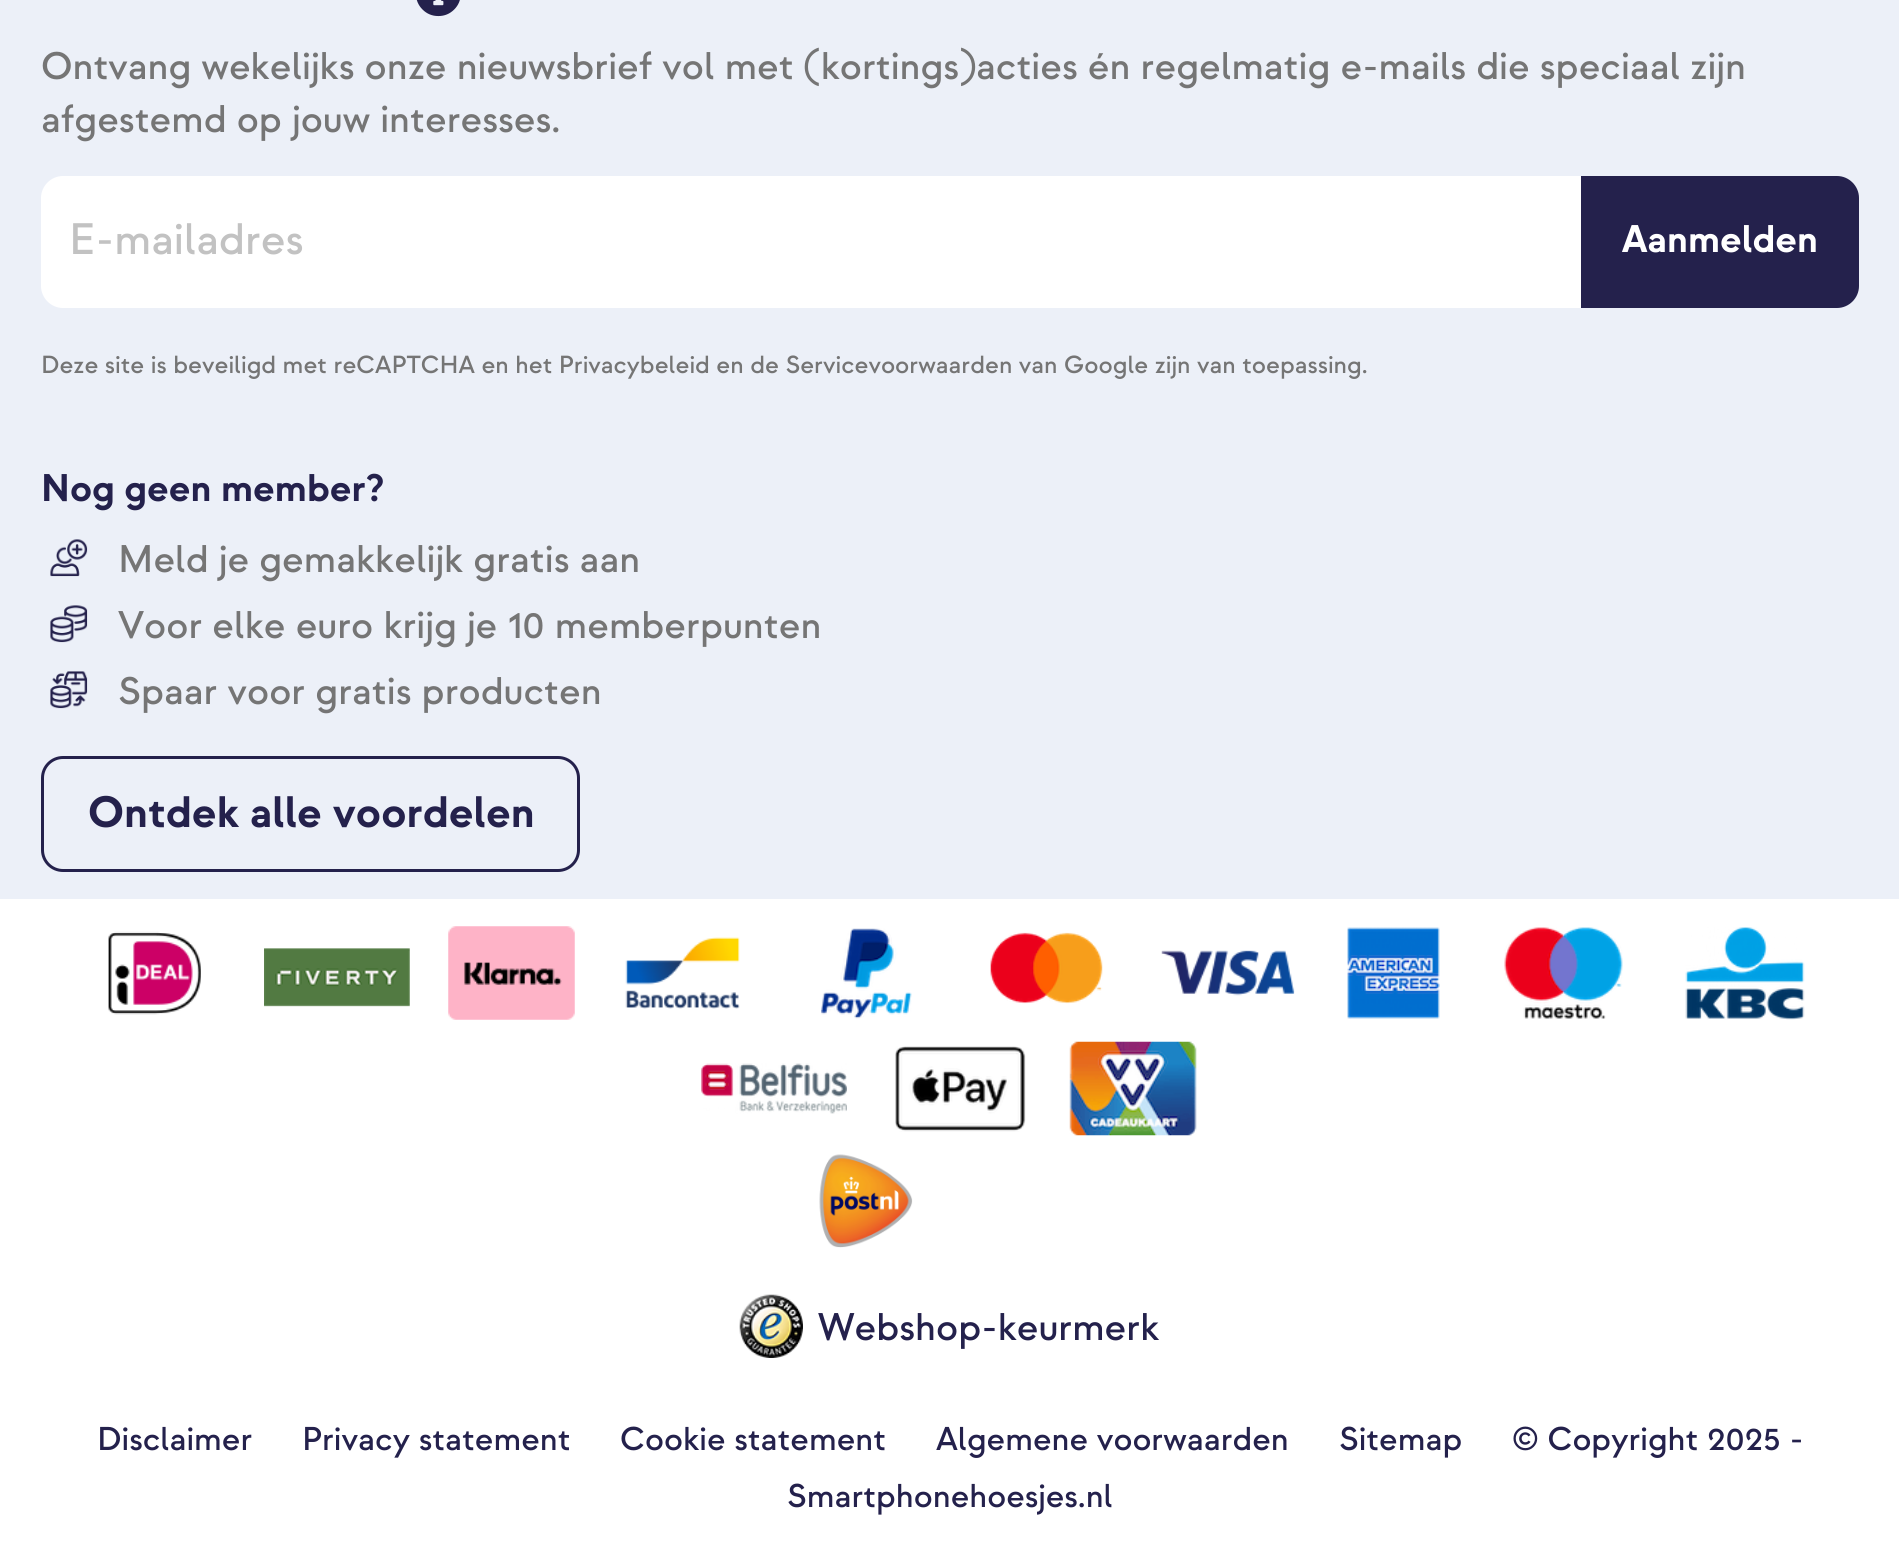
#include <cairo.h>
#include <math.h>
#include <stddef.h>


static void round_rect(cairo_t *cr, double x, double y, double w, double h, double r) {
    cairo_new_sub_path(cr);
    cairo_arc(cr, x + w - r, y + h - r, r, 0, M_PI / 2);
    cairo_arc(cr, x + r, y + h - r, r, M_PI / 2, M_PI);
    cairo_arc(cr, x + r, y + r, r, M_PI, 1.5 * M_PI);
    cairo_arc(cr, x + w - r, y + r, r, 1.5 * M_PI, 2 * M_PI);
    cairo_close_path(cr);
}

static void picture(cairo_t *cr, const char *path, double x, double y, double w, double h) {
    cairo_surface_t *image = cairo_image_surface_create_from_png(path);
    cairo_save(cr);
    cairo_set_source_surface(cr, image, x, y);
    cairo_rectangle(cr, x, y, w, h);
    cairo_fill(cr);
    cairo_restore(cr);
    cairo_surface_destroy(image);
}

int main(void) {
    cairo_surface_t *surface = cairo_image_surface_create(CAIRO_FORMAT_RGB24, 1899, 1566);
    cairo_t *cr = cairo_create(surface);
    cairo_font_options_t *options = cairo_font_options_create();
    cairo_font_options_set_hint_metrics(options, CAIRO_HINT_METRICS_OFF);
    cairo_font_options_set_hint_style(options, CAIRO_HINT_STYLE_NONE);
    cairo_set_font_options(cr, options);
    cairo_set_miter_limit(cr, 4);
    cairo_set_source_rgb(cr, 1, 1, 1);
    cairo_paint(cr);
    cairo_set_source_rgb(cr, 0.925, 0.941, 0.969);
    cairo_rectangle(cr, 0, 0, 1899, 899);
    cairo_fill(cr);
    picture(cr, "img1.png", 416, 0, 44, 17);
    cairo_select_font_face(cr, "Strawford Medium", CAIRO_FONT_SLANT_NORMAL, CAIRO_FONT_WEIGHT_NORMAL);
    cairo_set_font_size(cr, 38.5);
    cairo_set_source_rgb(cr, 0.459, 0.459, 0.459);
    cairo_move_to(cr, 41, 79);
    cairo_show_text(cr, "Ontvang wekelijks onze nieuwsbrief vol met (kortings)acties én regelmatig e-mails die speciaal zijn");
    cairo_move_to(cr, 41, 132);
    cairo_show_text(cr, "afgestemd op jouw interesses.");
    cairo_set_source_rgb(cr, 1, 1, 1);
    cairo_new_path(cr);
    cairo_move_to(cr, 63, 176);
    cairo_line_to(cr, 1581, 176);
    cairo_line_to(cr, 1581, 308);
    cairo_line_to(cr, 63, 308);
    cairo_curve_to(cr, 51, 308, 41, 298, 41, 286);
    cairo_line_to(cr, 41, 198);
    cairo_curve_to(cr, 41, 186, 51, 176, 63, 176);
    cairo_close_path(cr);
    cairo_fill(cr);
    cairo_set_font_size(cr, 44);
    cairo_set_source_rgb(cr, 0.761, 0.761, 0.761);
    cairo_move_to(cr, 69, 254);
    cairo_show_text(cr, "E-mailadres");
    cairo_set_source_rgb(cr, 0.141, 0.129, 0.298);
    cairo_new_path(cr);
    cairo_move_to(cr, 1581, 176);
    cairo_line_to(cr, 1837, 176);
    cairo_curve_to(cr, 1849, 176, 1859, 186, 1859, 198);
    cairo_line_to(cr, 1859, 286);
    cairo_curve_to(cr, 1859, 298, 1849, 308, 1837, 308);
    cairo_line_to(cr, 1581, 308);
    cairo_close_path(cr);
    cairo_fill(cr);
    cairo_select_font_face(cr, "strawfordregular", CAIRO_FONT_SLANT_NORMAL, CAIRO_FONT_WEIGHT_BOLD);
    cairo_set_font_size(cr, 38.5);
    cairo_set_source_rgb(cr, 1, 1, 1);
    cairo_move_to(cr, 1622, 252);
    cairo_show_text(cr, "Aanmelden");
    cairo_select_font_face(cr, "Strawford Medium", CAIRO_FONT_SLANT_NORMAL, CAIRO_FONT_WEIGHT_NORMAL);
    cairo_set_font_size(cr, 24.75);
    cairo_set_source_rgb(cr, 0.459, 0.459, 0.459);
    cairo_move_to(cr, 41, 373);
    cairo_show_text(cr, "Deze site is beveiligd met reCAPTCHA en het Privacybeleid en de Servicevoorwaarden van Google zijn van toepassing.");
    cairo_select_font_face(cr, "strawfordregular", CAIRO_FONT_SLANT_NORMAL, CAIRO_FONT_WEIGHT_BOLD);
    cairo_set_font_size(cr, 38.5);
    cairo_set_source_rgb(cr, 0.141, 0.129, 0.298);
    cairo_move_to(cr, 41, 501);
    cairo_show_text(cr, "Nog geen member?");
    picture(cr, "img2.png", 50, 539, 38, 38);
    cairo_select_font_face(cr, "Strawford Medium", CAIRO_FONT_SLANT_NORMAL, CAIRO_FONT_WEIGHT_NORMAL);
    cairo_set_source_rgb(cr, 0.459, 0.459, 0.459);
    cairo_move_to(cr, 118, 572);
    cairo_show_text(cr, "Meld je gemakkelijk gratis aan");
    picture(cr, "img3.png", 50, 605, 38, 38);
    cairo_move_to(cr, 118, 638);
    cairo_show_text(cr, "Voor elke euro krijg je 10 memberpunten");
    picture(cr, "img4.png", 50, 671, 38, 38);
    cairo_move_to(cr, 118, 704);
    cairo_show_text(cr, "Spaar voor gratis producten");
    round_rect(cr, 42.5, 757.5, 536, 113, 20.5);
    cairo_set_source_rgb(cr, 0.141, 0.129, 0.298);
    cairo_set_line_width(cr, 3);
    cairo_stroke(cr);
    cairo_select_font_face(cr, "strawfordregular", CAIRO_FONT_SLANT_NORMAL, CAIRO_FONT_WEIGHT_BOLD);
    cairo_set_font_size(cr, 44);
    cairo_move_to(cr, 88, 827);
    cairo_show_text(cr, "Ontdek alle voordelen");
    picture(cr, "img5.png", 108, 931, 93, 84);
    picture(cr, "img6.png", 264, 948, 146, 59);
    picture(cr, "img7.png", 448, 926, 127, 94);
    picture(cr, "img8.png", 625, 937, 115, 72);
    picture(cr, "img9.png", 821, 928, 91, 91);
    picture(cr, "img10.png", 990, 932, 113, 72);
    picture(cr, "img11.png", 1161, 950, 134, 46);
    picture(cr, "img12.png", 1347, 927, 93, 92);
    picture(cr, "img13.png", 1504, 927, 119, 92);
    picture(cr, "img14.png", 1685, 927, 120, 93);
    picture(cr, "img15.png", 701, 1063, 146, 51);
    picture(cr, "img16.png", 895, 1046, 131, 86);
    picture(cr, "img17.png", 1069, 1041, 128, 95);
    picture(cr, "img18.png", 819, 1154, 94, 94);
    picture(cr, "img19.png", 739, 1294, 64, 64);
    cairo_select_font_face(cr, "Strawford Medium", CAIRO_FONT_SLANT_NORMAL, CAIRO_FONT_WEIGHT_NORMAL);
    cairo_set_font_size(cr, 38.5);
    cairo_move_to(cr, 818, 1340);
    cairo_show_text(cr, "Webshop-keurmerk");
    cairo_set_font_size(cr, 33);
    cairo_move_to(cr, 97, 1450);
    cairo_show_text(cr, "Disclaimer");
    cairo_move_to(cr, 302, 1450);
    cairo_show_text(cr, "Privacy statement");
    cairo_move_to(cr, 620, 1450);
    cairo_show_text(cr, "Cookie statement");
    cairo_move_to(cr, 936, 1450);
    cairo_show_text(cr, "Algemene voorwaarden");
    cairo_move_to(cr, 1339, 1450);
    cairo_show_text(cr, "Sitemap");
    cairo_move_to(cr, 1512, 1450);
    cairo_show_text(cr, "© Copyright 2025 -");
    cairo_move_to(cr, 787, 1507);
    cairo_show_text(cr, "Smartphonehoesjes.nl");
    cairo_surface_write_to_png(surface, "page.png");
    cairo_font_options_destroy(options);
    cairo_destroy(cr);
    cairo_surface_destroy(surface);
    return 0;
}
